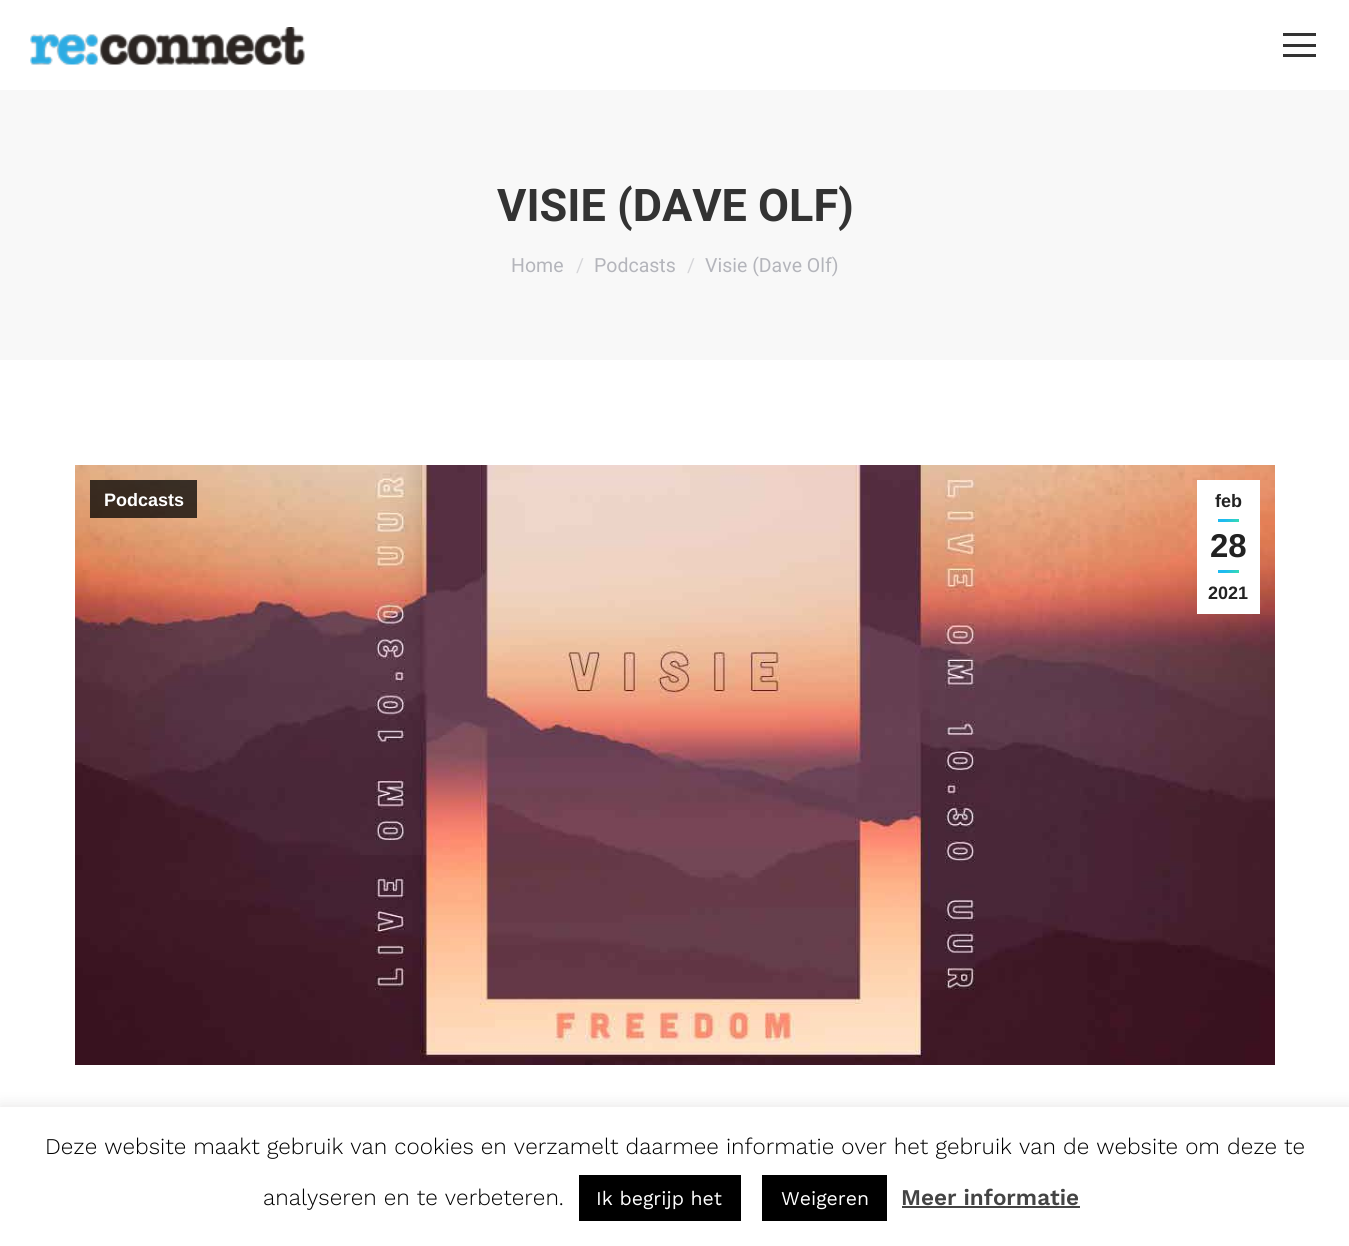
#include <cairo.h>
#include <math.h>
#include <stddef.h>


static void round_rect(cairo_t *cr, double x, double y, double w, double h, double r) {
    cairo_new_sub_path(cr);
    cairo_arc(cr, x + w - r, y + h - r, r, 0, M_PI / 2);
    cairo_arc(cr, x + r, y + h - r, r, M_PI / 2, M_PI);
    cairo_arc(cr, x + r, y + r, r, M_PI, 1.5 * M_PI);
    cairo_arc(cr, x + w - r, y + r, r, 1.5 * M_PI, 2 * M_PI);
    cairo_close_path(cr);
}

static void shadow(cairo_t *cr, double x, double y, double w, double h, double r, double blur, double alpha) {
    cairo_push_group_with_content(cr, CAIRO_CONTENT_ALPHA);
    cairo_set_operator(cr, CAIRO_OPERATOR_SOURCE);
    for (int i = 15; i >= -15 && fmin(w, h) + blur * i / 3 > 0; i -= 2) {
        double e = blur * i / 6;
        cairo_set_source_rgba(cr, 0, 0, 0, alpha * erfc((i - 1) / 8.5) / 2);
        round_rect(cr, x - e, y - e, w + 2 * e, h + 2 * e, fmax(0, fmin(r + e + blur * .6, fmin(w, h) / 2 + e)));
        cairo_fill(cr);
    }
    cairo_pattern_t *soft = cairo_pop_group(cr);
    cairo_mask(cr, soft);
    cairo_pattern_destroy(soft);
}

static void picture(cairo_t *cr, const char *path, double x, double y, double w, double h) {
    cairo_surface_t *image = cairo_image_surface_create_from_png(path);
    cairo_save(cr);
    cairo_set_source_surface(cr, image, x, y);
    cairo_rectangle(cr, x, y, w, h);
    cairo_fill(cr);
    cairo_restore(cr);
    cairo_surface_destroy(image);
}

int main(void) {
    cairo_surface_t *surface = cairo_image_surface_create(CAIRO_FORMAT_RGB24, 1349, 1246);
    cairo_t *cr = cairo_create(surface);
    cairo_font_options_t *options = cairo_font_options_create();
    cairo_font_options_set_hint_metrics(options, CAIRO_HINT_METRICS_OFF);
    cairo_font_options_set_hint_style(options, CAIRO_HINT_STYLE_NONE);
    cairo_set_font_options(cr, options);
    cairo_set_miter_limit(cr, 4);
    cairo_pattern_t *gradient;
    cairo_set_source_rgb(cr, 1, 1, 1);
    cairo_paint(cr);
    picture(cr, "img1.png", 30, 27, 275, 38);
    cairo_set_source_rgb(cr, 0.2, 0.2, 0.2);
    cairo_rectangle(cr, 1283, 33, 33, 3);
    cairo_fill(cr);
    cairo_rectangle(cr, 1283, 44, 33, 3);
    cairo_fill(cr);
    cairo_rectangle(cr, 1283, 54, 33, 3);
    cairo_fill(cr);
    cairo_set_source_rgb(cr, 0.969, 0.969, 0.969);
    cairo_rectangle(cr, 0, 90, 1349, 270);
    cairo_fill(cr);
    cairo_select_font_face(cr, "Roboto", CAIRO_FONT_SLANT_NORMAL, CAIRO_FONT_WEIGHT_BOLD);
    cairo_set_font_size(cr, 45);
    cairo_set_source_rgb(cr, 0.2, 0.2, 0.2);
    cairo_move_to(cr, 497, 221);
    cairo_show_text(cr, "VISIE (DAVE OLF)");
    cairo_select_font_face(cr, "Roboto", CAIRO_FONT_SLANT_NORMAL, CAIRO_FONT_WEIGHT_NORMAL);
    cairo_set_font_size(cr, 19.5);
    cairo_set_source_rgb(cr, 0.706, 0.71, 0.733);
    cairo_move_to(cr, 511, 272);
    cairo_show_text(cr, "Home");
    cairo_set_source_rgb(cr, 0.839, 0.839, 0.851);
    cairo_move_to(cr, 576, 272);
    cairo_show_text(cr, "/");
    cairo_set_source_rgb(cr, 0.706, 0.71, 0.733);
    cairo_move_to(cr, 594, 272);
    cairo_show_text(cr, "Podcasts");
    cairo_set_source_rgb(cr, 0.839, 0.839, 0.851);
    cairo_move_to(cr, 687, 272);
    cairo_show_text(cr, "/");
    cairo_set_source_rgb(cr, 0.706, 0.71, 0.733);
    cairo_move_to(cr, 705, 272);
    cairo_show_text(cr, "Visie (Dave Olf)");
    picture(cr, "img2.png", 75, 465, 1200, 600);
    cairo_set_source_rgba(cr, 0, 0, 0, 0.75);
    cairo_rectangle(cr, 90, 480, 107, 38);
    cairo_fill(cr);
    cairo_select_font_face(cr, "Liberation Sans", CAIRO_FONT_SLANT_NORMAL, CAIRO_FONT_WEIGHT_BOLD);
    cairo_set_font_size(cr, 18);
    cairo_set_source_rgb(cr, 1, 1, 1);
    cairo_move_to(cr, 104, 506);
    cairo_show_text(cr, "Podcasts");
    cairo_rectangle(cr, 1197, 480, 63, 134);
    cairo_fill(cr);
    cairo_set_source_rgb(cr, 0.133, 0.133, 0.133);
    cairo_move_to(cr, 1215, 507);
    cairo_show_text(cr, "feb");
    gradient = cairo_pattern_create_linear(1223, 515, 1235, 527);
    cairo_pattern_add_color_stop_rgba(gradient, 0.3, 0.118, 0.733, 0.941, 1);
    cairo_pattern_add_color_stop_rgba(gradient, 1, 0.224, 0.875, 0.667, 1);
    cairo_set_source(cr, gradient);
    cairo_pattern_destroy(gradient);
    cairo_rectangle(cr, 1218, 519, 21, 3);
    cairo_fill(cr);
    cairo_set_font_size(cr, 33);
    cairo_set_source_rgb(cr, 0.133, 0.133, 0.133);
    cairo_move_to(cr, 1210, 557);
    cairo_show_text(cr, "28");
    gradient = cairo_pattern_create_linear(1223, 566, 1235, 578);
    cairo_pattern_add_color_stop_rgba(gradient, 0.3, 0.118, 0.733, 0.941, 1);
    cairo_pattern_add_color_stop_rgba(gradient, 1, 0.224, 0.875, 0.667, 1);
    cairo_set_source(cr, gradient);
    cairo_pattern_destroy(gradient);
    cairo_rectangle(cr, 1218, 570, 21, 3);
    cairo_fill(cr);
    cairo_set_font_size(cr, 18);
    cairo_set_source_rgb(cr, 0.133, 0.133, 0.133);
    cairo_move_to(cr, 1208, 599);
    cairo_show_text(cr, "2021");
    cairo_set_source_rgb(cr, 0.675, 0.671, 0.671);
    shadow(cr, 0, 1106, 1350, 139, 0, 7.5, 0.3);
    cairo_set_source_rgb(cr, 1, 1, 1);
    cairo_rectangle(cr, 0, 1107, 1349, 139);
    cairo_fill(cr);
    cairo_select_font_face(cr, "Work Sans Light", CAIRO_FONT_SLANT_NORMAL, CAIRO_FONT_WEIGHT_NORMAL);
    cairo_set_font_size(cr, 22.5);
    cairo_set_source_rgb(cr, 0, 0, 0);
    cairo_move_to(cr, 45, 1154);
    cairo_show_text(cr, "Deze website maakt gebruik van cookies en verzamelt daarmee informatie over het gebruik van de website om deze te");
    cairo_move_to(cr, 263, 1205);
    cairo_show_text(cr, "analyseren en te verbeteren.");
    cairo_rectangle(cr, 579, 1175, 162, 46);
    cairo_fill(cr);
    cairo_select_font_face(cr, "Work Sans", CAIRO_FONT_SLANT_NORMAL, CAIRO_FONT_WEIGHT_NORMAL);
    cairo_set_font_size(cr, 19.5);
    cairo_set_source_rgb(cr, 1, 1, 1);
    cairo_move_to(cr, 596, 1205);
    cairo_show_text(cr, "Ik begrijp het");
    cairo_set_source_rgb(cr, 0, 0, 0);
    cairo_rectangle(cr, 762, 1175, 125, 46);
    cairo_fill(cr);
    cairo_set_source_rgb(cr, 1, 1, 1);
    cairo_move_to(cr, 781, 1205);
    cairo_show_text(cr, "Weigeren");
    cairo_select_font_face(cr, "Work Sans SemiBold", CAIRO_FONT_SLANT_NORMAL, CAIRO_FONT_WEIGHT_NORMAL);
    cairo_set_font_size(cr, 22.5);
    cairo_set_source_rgb(cr, 0.267, 0.267, 0.267);
    cairo_move_to(cr, 901, 1205);
    cairo_show_text(cr, "Meer informatie");
    cairo_rectangle(cr, 902, 1206, 178, 2);
    cairo_fill(cr);
    cairo_surface_write_to_png(surface, "page.png");
    cairo_font_options_destroy(options);
    cairo_destroy(cr);
    cairo_surface_destroy(surface);
    return 0;
}
